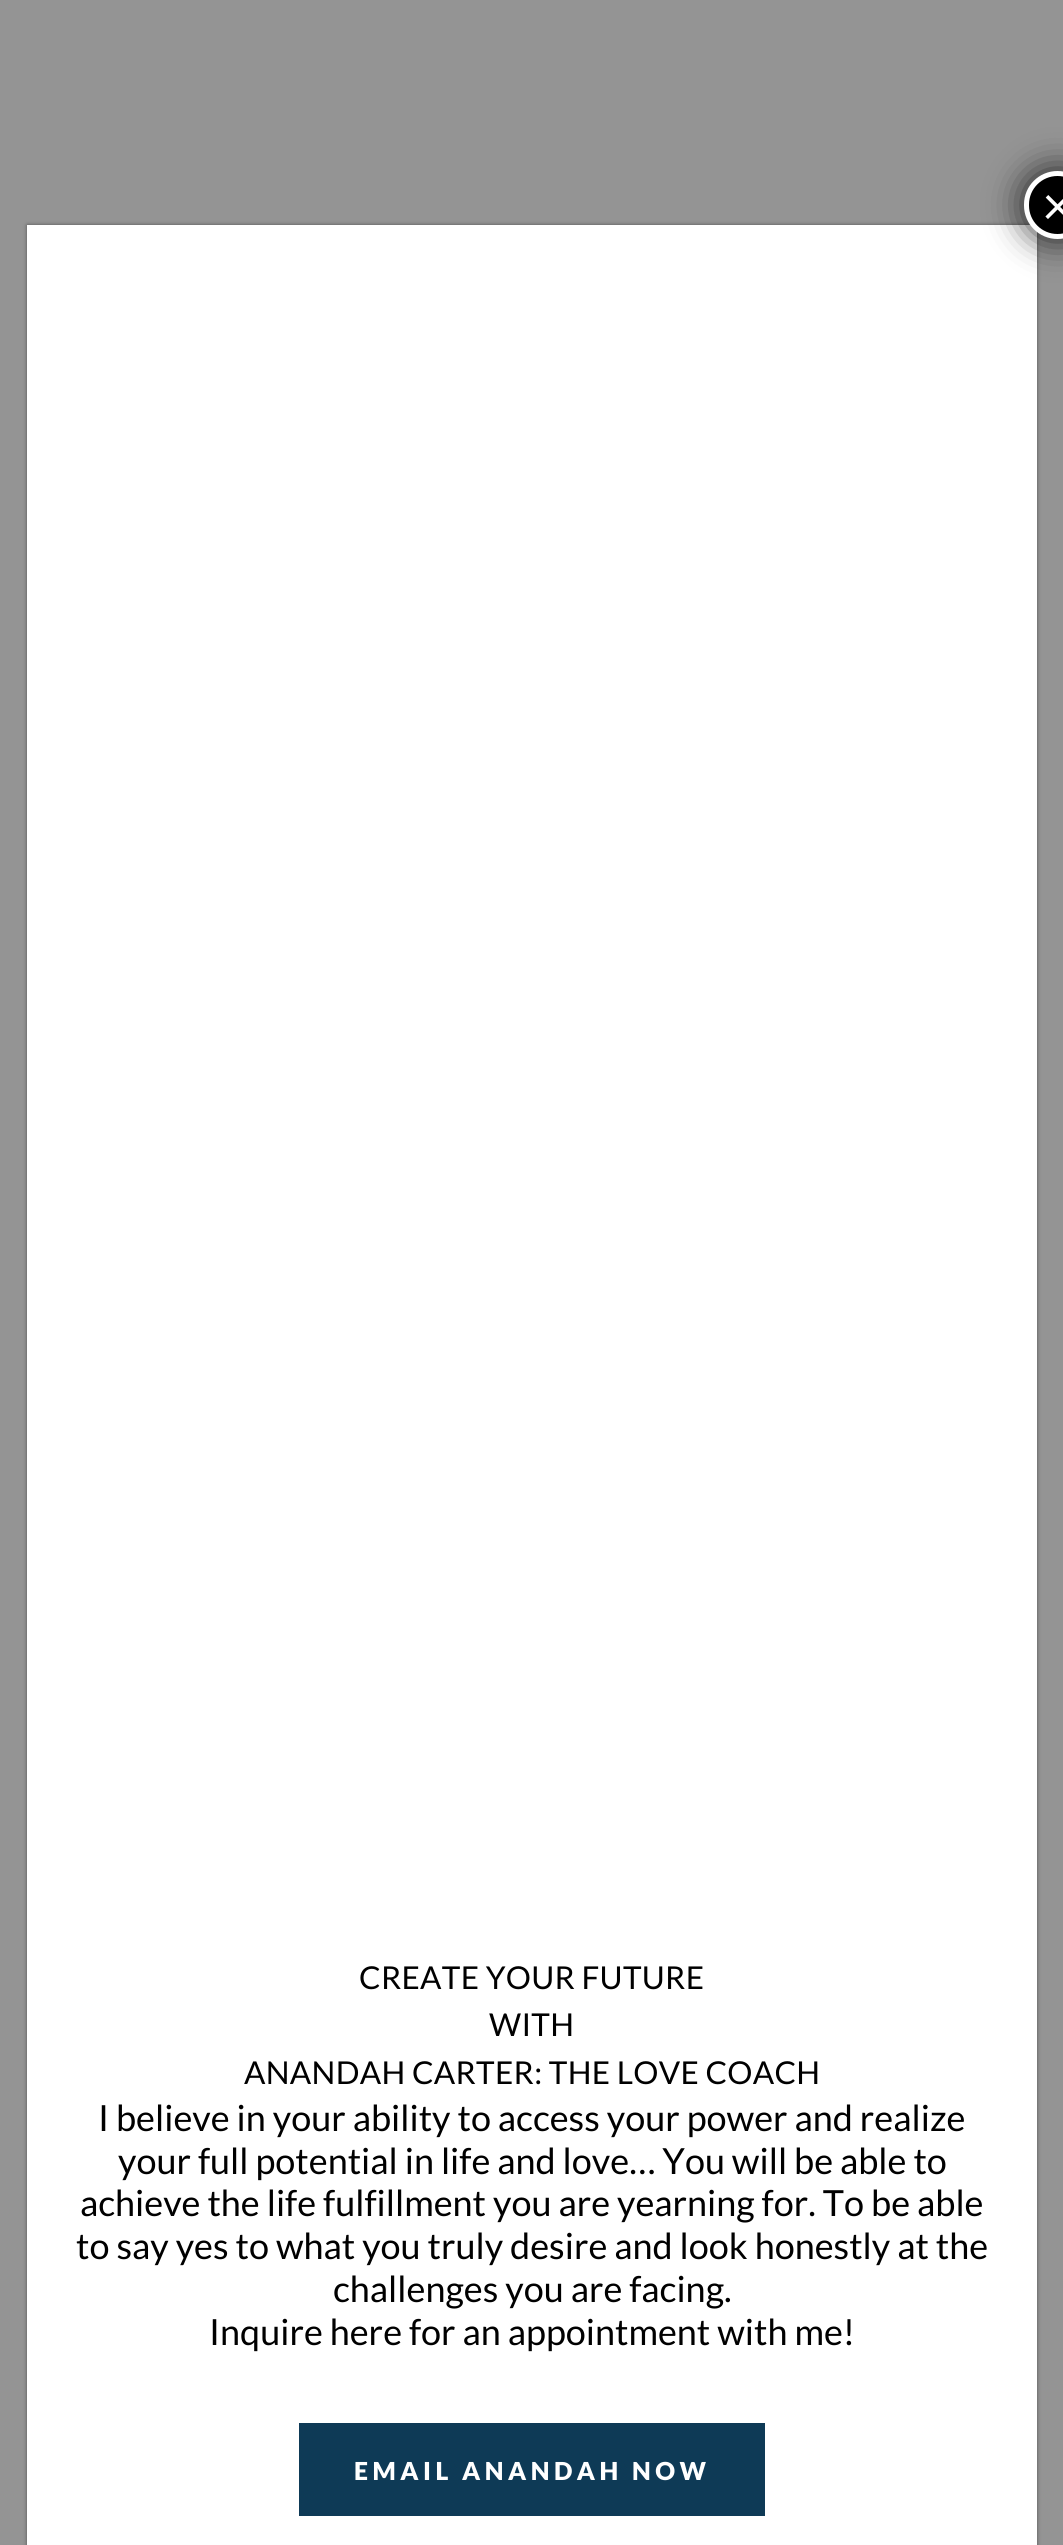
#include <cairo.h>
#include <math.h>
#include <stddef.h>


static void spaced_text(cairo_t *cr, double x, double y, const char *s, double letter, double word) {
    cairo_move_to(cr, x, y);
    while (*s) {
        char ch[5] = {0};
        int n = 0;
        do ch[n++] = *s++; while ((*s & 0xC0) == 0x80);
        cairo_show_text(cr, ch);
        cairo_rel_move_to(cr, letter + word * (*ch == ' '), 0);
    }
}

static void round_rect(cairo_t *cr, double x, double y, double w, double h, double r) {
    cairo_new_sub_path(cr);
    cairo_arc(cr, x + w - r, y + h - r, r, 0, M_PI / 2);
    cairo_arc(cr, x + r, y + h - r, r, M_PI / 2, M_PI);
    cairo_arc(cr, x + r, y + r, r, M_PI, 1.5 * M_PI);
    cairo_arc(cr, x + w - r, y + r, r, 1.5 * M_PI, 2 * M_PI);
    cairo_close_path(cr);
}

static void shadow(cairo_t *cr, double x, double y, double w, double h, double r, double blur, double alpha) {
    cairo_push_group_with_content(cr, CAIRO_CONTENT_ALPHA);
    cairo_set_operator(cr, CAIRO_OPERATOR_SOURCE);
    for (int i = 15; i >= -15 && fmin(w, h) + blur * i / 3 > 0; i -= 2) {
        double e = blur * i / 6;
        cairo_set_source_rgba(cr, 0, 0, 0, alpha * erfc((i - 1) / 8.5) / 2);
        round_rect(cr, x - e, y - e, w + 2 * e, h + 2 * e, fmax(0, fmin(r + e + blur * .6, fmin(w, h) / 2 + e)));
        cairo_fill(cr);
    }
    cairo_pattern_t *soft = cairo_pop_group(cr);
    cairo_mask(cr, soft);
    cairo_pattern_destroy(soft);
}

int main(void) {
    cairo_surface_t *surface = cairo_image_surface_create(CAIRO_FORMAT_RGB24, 1063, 2545);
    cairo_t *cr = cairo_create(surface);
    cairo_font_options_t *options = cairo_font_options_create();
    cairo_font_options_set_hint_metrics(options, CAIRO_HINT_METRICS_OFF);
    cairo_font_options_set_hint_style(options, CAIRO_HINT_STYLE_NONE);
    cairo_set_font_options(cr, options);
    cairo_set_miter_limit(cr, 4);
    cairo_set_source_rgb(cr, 0.58, 0.58, 0.58);
    cairo_paint(cr);
    cairo_set_source_rgb(cr, 0.329, 0.329, 0.329);
    shadow(cr, 27, 225, 1010, 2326, 0, 2, 1);
    cairo_set_source_rgb(cr, 1, 1, 1);
    cairo_rectangle(cr, 27, 225, 1010, 2320);
    cairo_fill(cr);
    cairo_set_source_rgb(cr, 0.008, 0.008, 0.008);
    shadow(cr, 1022, 169, 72, 72, 36, 17, 0.75);
    cairo_set_source_rgb(cr, 0, 0, 0);
    round_rect(cr, 1026.5, 173.5, 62, 63, 31);
    cairo_fill_preserve(cr);
    cairo_set_source_rgb(cr, 1, 1, 1);
    cairo_set_line_width(cr, 5);
    cairo_stroke(cr);
    cairo_select_font_face(cr, "Lato", CAIRO_FONT_SLANT_NORMAL, CAIRO_FONT_WEIGHT_NORMAL);
    cairo_set_font_size(cr, 54);
    cairo_move_to(cr, 1042, 225);
    cairo_show_text(cr, "×");
    cairo_set_font_size(cr, 31.5);
    cairo_set_source_rgb(cr, 0, 0, 0);
    spaced_text(cr, 359, 1989, "CREATE YOUR FUTURE", 0.3, 0);
    spaced_text(cr, 489, 2036, "WITH", 0.3, 0);
    spaced_text(cr, 244, 2084, "ANANDAH CARTER: THE LOVE COACH", 0.3, 0);
    cairo_set_font_size(cr, 36);
    cairo_move_to(cr, 98, 2131);
    cairo_show_text(cr, "I believe in your ability to access your power and realize");
    cairo_move_to(cr, 118, 2174);
    cairo_show_text(cr, "your full potential in life and love… You will be able to");
    cairo_move_to(cr, 80, 2216);
    cairo_show_text(cr, "achieve the life fulfillment you are yearning for. To be able");
    cairo_move_to(cr, 76, 2259);
    cairo_show_text(cr, "to say yes to what you truly desire and look honestly at the");
    cairo_move_to(cr, 333, 2302);
    cairo_show_text(cr, "challenges you are facing.");
    cairo_move_to(cr, 209, 2345);
    cairo_show_text(cr, "Inquire here for an appointment with me!");
    cairo_set_source_rgb(cr, 0.055, 0.227, 0.337);
    cairo_rectangle(cr, 299, 2423, 466, 93);
    cairo_fill(cr);
    cairo_select_font_face(cr, "Lato Black", CAIRO_FONT_SLANT_NORMAL, CAIRO_FONT_WEIGHT_NORMAL);
    cairo_set_font_size(cr, 24.75);
    cairo_set_source_rgb(cr, 1, 1, 1);
    spaced_text(cr, 354, 2480, "EMAIL ANANDAH NOW", 4.5, 0);
    cairo_surface_write_to_png(surface, "page.png");
    cairo_font_options_destroy(options);
    cairo_destroy(cr);
    cairo_surface_destroy(surface);
    return 0;
}
